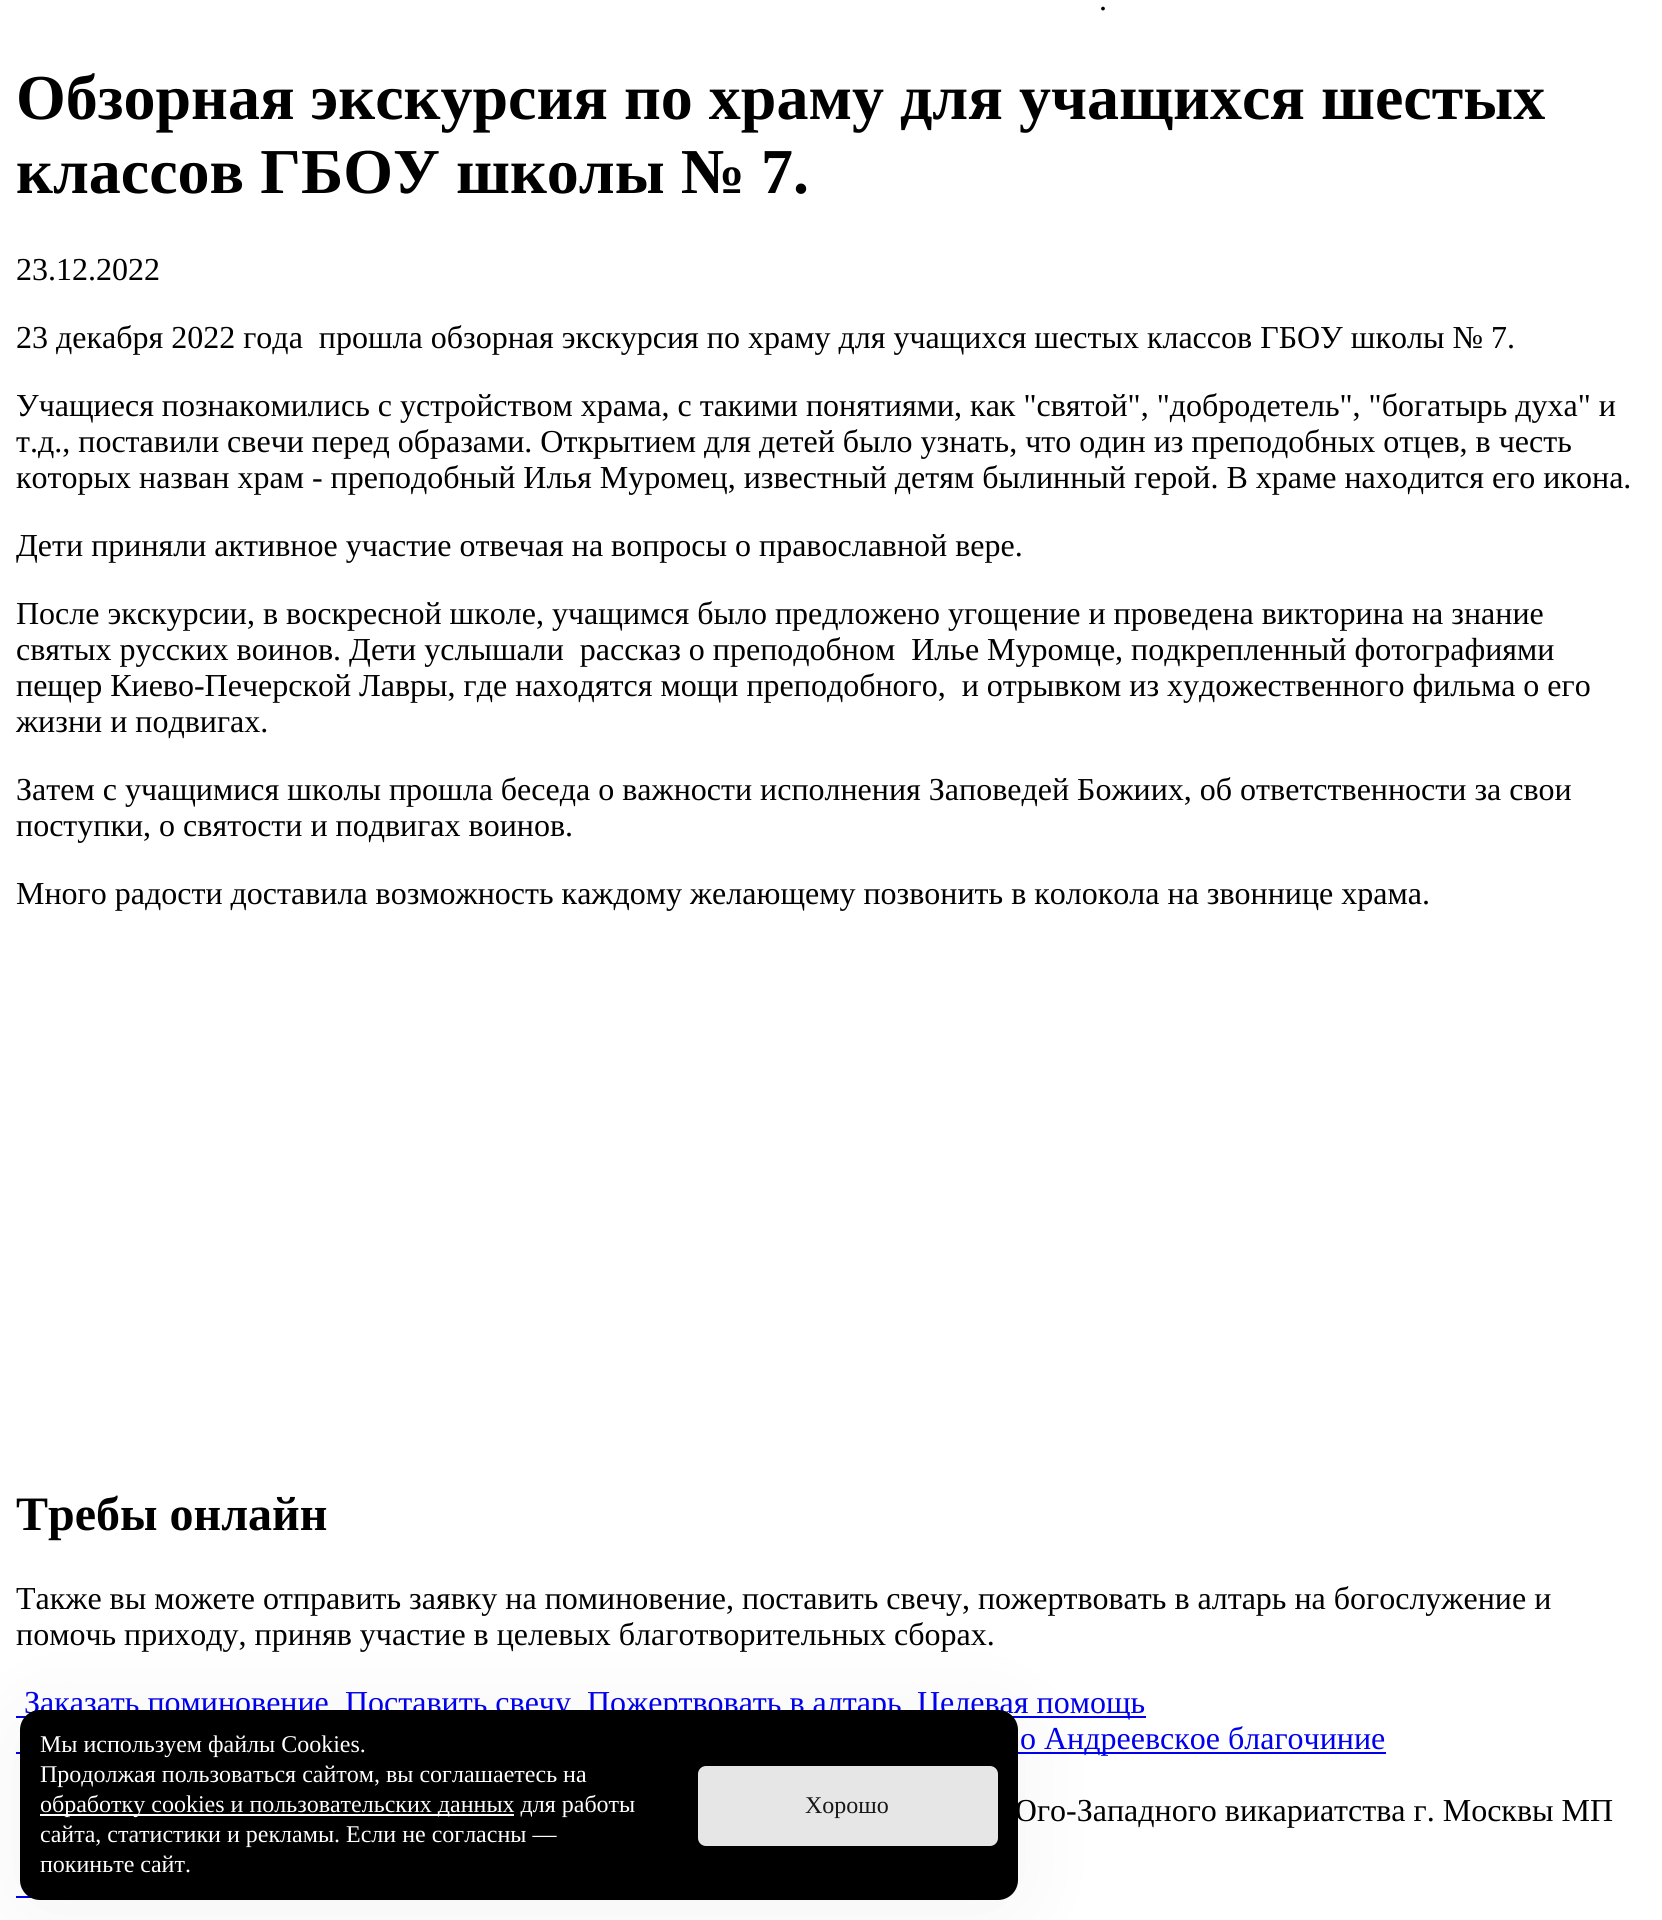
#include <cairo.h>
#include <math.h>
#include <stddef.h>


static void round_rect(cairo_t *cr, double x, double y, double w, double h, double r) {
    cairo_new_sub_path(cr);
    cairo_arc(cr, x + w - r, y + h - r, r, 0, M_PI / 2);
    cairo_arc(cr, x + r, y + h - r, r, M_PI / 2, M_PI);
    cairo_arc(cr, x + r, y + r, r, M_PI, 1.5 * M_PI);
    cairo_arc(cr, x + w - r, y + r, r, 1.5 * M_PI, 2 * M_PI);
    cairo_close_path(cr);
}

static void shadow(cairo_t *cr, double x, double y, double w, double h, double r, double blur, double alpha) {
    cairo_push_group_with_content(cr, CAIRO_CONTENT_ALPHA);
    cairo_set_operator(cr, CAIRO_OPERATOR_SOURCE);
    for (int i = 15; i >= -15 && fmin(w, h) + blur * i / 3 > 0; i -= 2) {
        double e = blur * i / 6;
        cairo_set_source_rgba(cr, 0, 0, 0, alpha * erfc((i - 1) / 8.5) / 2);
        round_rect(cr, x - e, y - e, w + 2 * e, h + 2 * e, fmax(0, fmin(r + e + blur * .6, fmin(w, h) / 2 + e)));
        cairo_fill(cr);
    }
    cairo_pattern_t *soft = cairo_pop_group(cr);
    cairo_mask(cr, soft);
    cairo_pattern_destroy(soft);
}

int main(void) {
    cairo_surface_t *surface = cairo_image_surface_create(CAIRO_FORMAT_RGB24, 1662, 1920);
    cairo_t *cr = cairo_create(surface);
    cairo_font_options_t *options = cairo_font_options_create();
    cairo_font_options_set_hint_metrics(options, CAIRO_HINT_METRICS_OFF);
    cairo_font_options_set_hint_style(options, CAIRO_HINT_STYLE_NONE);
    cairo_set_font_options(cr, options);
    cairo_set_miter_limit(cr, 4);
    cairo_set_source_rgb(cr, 1, 1, 1);
    cairo_paint(cr);
    cairo_select_font_face(cr, "Liberation Serif", CAIRO_FONT_SLANT_NORMAL, CAIRO_FONT_WEIGHT_NORMAL);
    cairo_set_font_size(cr, 32);
    cairo_set_source_rgb(cr, 0, 0, 0);
    cairo_move_to(cr, 1099, 10);
    cairo_show_text(cr, ".");
    cairo_select_font_face(cr, "Liberation Serif", CAIRO_FONT_SLANT_NORMAL, CAIRO_FONT_WEIGHT_BOLD);
    cairo_set_font_size(cr, 64);
    cairo_move_to(cr, 16, 119);
    cairo_show_text(cr, "Обзорная экскурсия по храму для учащихся шестых");
    cairo_move_to(cr, 16, 193);
    cairo_show_text(cr, "классов ГБОУ школы № 7.");
    cairo_select_font_face(cr, "Liberation Serif", CAIRO_FONT_SLANT_NORMAL, CAIRO_FONT_WEIGHT_NORMAL);
    cairo_set_font_size(cr, 32);
    cairo_move_to(cr, 16, 280);
    cairo_show_text(cr, "23.12.2022");
    cairo_move_to(cr, 16, 348);
    cairo_show_text(cr, "23 декабря 2022 года  прошла обзорная экскурсия по храму для учащихся шестых классов ГБОУ школы № 7.");
    cairo_move_to(cr, 16, 416);
    cairo_show_text(cr, "Учащиеся познакомились с устройством храма, с такими понятиями, как \"святой\", \"добродетель\", \"богатырь духа\" и");
    cairo_move_to(cr, 16, 452);
    cairo_show_text(cr, "т.д., поставили свечи перед образами. Открытием для детей было узнать, что один из преподобных отцев, в честь");
    cairo_move_to(cr, 16, 488);
    cairo_show_text(cr, "которых назван храм - преподобный Илья Муромец, известный детям былинный герой. В храме находится его икона.");
    cairo_move_to(cr, 16, 556);
    cairo_show_text(cr, "Дети приняли активное участие отвечая на вопросы о православной вере.");
    cairo_move_to(cr, 16, 624);
    cairo_show_text(cr, "После экскурсии, в воскресной школе, учащимся было предложено угощение и проведена викторина на знание");
    cairo_move_to(cr, 16, 660);
    cairo_show_text(cr, "святых русских воинов. Дети услышали  рассказ о преподобном  Илье Муромце, подкрепленный фотографиями");
    cairo_move_to(cr, 16, 696);
    cairo_show_text(cr, "пещер Киево-Печерской Лавры, где находятся мощи преподобного,  и отрывком из художественного фильма о его");
    cairo_move_to(cr, 16, 732);
    cairo_show_text(cr, "жизни и подвигах.");
    cairo_move_to(cr, 16, 800);
    cairo_show_text(cr, "Затем с учащимися школы прошла беседа о важности исполнения Заповедей Божиих, об ответственности за свои");
    cairo_move_to(cr, 16, 836);
    cairo_show_text(cr, "поступки, о святости и подвигах воинов.");
    cairo_move_to(cr, 16, 904);
    cairo_show_text(cr, "Много радости доставила возможность каждому желающему позвонить в колокола на звоннице храма.");
    cairo_select_font_face(cr, "Liberation Serif", CAIRO_FONT_SLANT_NORMAL, CAIRO_FONT_WEIGHT_BOLD);
    cairo_set_font_size(cr, 48);
    cairo_move_to(cr, 16, 1530);
    cairo_show_text(cr, "Требы онлайн");
    cairo_select_font_face(cr, "Liberation Serif", CAIRO_FONT_SLANT_NORMAL, CAIRO_FONT_WEIGHT_NORMAL);
    cairo_set_font_size(cr, 32);
    cairo_move_to(cr, 16, 1609);
    cairo_show_text(cr, "Также вы можете отправить заявку на поминовение, поставить свечу, пожертвовать в алтарь на богослужение и");
    cairo_move_to(cr, 16, 1645);
    cairo_show_text(cr, "помочь приходу, приняв участие в целевых благотворительных сборах.");
    cairo_set_source_rgb(cr, 0, 0, 0.933);
    cairo_move_to(cr, 24, 1713);
    cairo_show_text(cr, "Заказать поминовение");
    cairo_rectangle(cr, 16, 1716, 10, 2);
    cairo_fill(cr);
    cairo_move_to(cr, 345, 1713);
    cairo_show_text(cr, "Поставить свечу");
    cairo_move_to(cr, 587, 1713);
    cairo_show_text(cr, "Пожертвовать в алтарь");
    cairo_rectangle(cr, 1012, 1716, 134, 2);
    cairo_fill(cr);
    cairo_move_to(cr, 917, 1713);
    cairo_show_text(cr, "Целевая помощь");
    cairo_rectangle(cr, 16, 1752, 4, 2);
    cairo_fill(cr);
    cairo_rectangle(cr, 1018, 1752, 368, 2);
    cairo_fill(cr);
    cairo_move_to(cr, 1020, 1749);
    cairo_show_text(cr, "о Андреевское благочиние");
    cairo_set_source_rgb(cr, 0, 0, 0);
    cairo_move_to(cr, 1004, 1821);
    cairo_show_text(cr, "Юго-Западного викариатства г. Москвы МП");
    cairo_set_source_rgb(cr, 0, 0, 0.933);
    cairo_rectangle(cr, 16, 1896, 16, 2);
    cairo_fill(cr);
    cairo_set_source_rgb(cr, 0, 0, 0);
    shadow(cr, 20, 1718, 998, 190, 20, 43.5, 0.05);
    cairo_set_source_rgb(cr, 0, 0, 0);
    round_rect(cr, 20, 1710, 998, 190, 20);
    cairo_fill(cr);
    cairo_set_font_size(cr, 24);
    cairo_set_source_rgb(cr, 1, 1, 1);
    cairo_move_to(cr, 40, 1752);
    cairo_show_text(cr, "Мы используем файлы Cookies.");
    cairo_move_to(cr, 40, 1782);
    cairo_show_text(cr, "Продолжая пользоваться сайтом, вы соглашаетесь на");
    cairo_rectangle(cr, 40, 1814, 474, 2);
    cairo_fill(cr);
    cairo_move_to(cr, 40, 1812);
    cairo_show_text(cr, "обработку cookies и пользовательских данных для работы");
    cairo_move_to(cr, 40, 1842);
    cairo_show_text(cr, "сайта, статистики и рекламы. Если не согласны —");
    cairo_move_to(cr, 40, 1872);
    cairo_show_text(cr, "покиньте сайт.");
    cairo_set_source_rgb(cr, 0.902, 0.902, 0.902);
    round_rect(cr, 698, 1766, 300, 80, 8);
    cairo_fill(cr);
    cairo_set_source_rgb(cr, 0.09, 0.09, 0.09);
    cairo_move_to(cr, 805, 1813);
    cairo_show_text(cr, "Хорошо");
    cairo_surface_write_to_png(surface, "page.png");
    cairo_font_options_destroy(options);
    cairo_destroy(cr);
    cairo_surface_destroy(surface);
    return 0;
}
